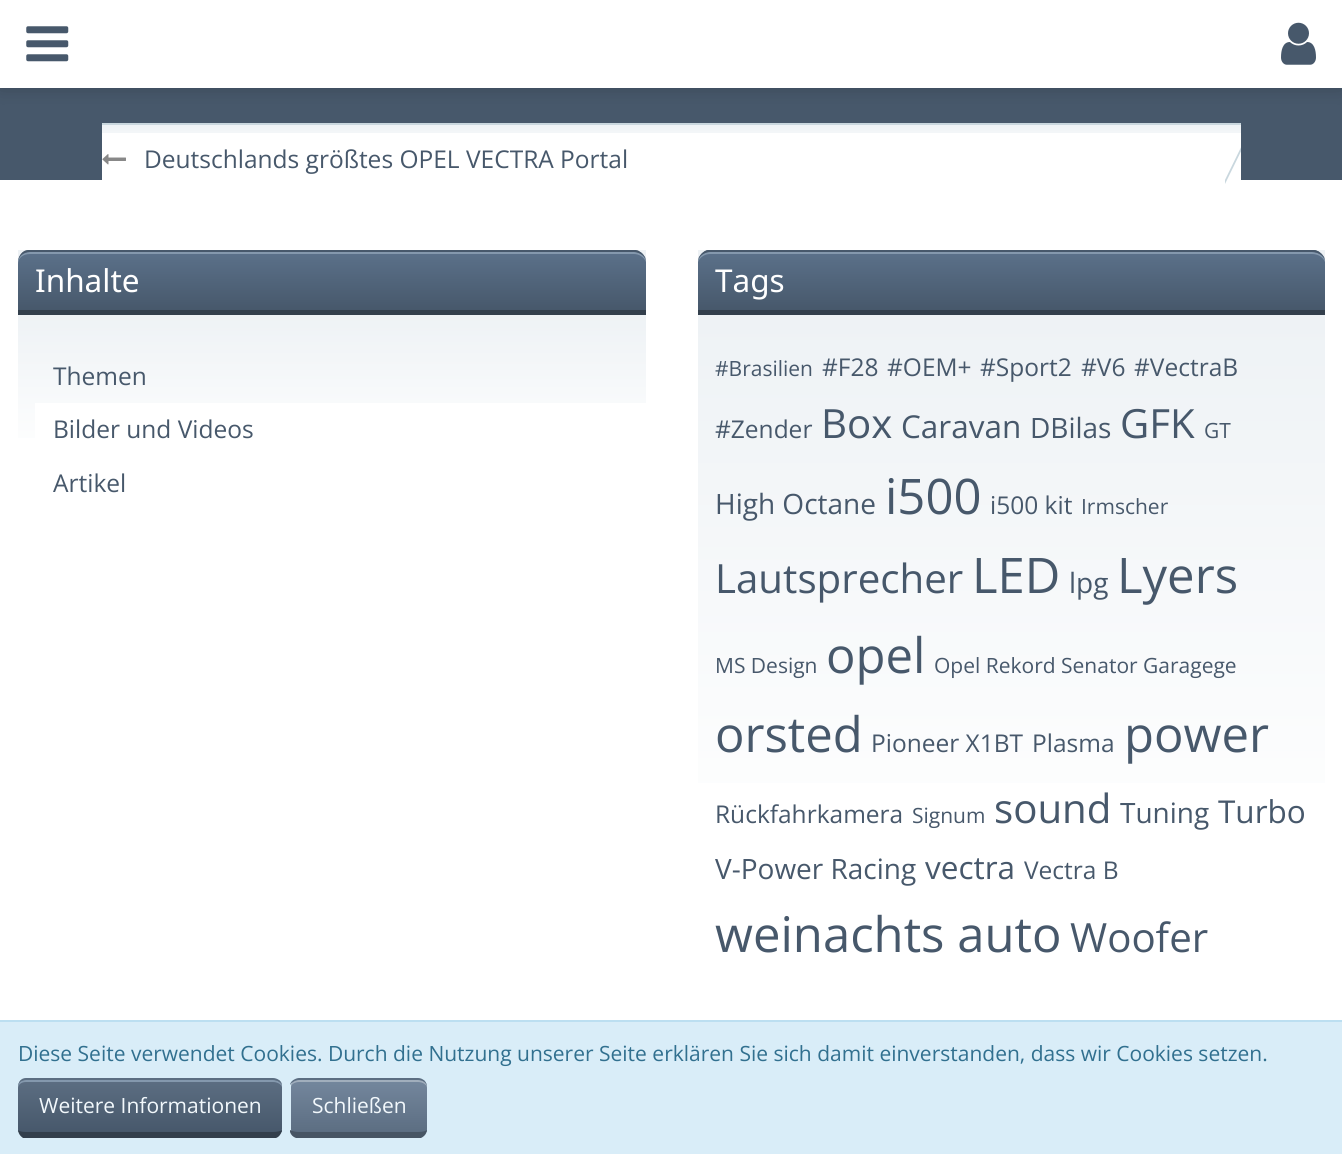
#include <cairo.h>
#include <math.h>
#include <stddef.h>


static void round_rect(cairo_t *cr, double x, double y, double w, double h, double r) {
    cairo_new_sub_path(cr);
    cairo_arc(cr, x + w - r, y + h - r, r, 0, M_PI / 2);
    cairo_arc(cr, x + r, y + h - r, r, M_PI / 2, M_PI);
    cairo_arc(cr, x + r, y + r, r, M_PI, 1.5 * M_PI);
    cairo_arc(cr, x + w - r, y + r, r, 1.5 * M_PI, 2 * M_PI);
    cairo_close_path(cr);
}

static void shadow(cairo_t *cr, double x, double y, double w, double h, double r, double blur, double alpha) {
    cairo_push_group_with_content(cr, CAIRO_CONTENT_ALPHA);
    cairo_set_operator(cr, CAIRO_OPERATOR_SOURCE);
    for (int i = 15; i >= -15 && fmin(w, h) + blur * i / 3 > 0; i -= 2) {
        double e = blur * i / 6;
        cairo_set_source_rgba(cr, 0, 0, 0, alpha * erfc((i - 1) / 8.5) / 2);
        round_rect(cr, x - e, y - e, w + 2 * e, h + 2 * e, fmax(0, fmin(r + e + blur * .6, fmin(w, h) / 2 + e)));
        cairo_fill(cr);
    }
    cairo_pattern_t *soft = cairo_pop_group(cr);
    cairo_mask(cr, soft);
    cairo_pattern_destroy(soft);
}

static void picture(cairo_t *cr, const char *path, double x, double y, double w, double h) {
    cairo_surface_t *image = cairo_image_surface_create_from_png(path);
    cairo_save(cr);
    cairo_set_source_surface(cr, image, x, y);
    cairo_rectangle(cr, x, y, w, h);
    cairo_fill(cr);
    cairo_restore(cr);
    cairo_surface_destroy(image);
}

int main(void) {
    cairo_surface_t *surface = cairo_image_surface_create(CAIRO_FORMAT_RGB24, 1342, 1154);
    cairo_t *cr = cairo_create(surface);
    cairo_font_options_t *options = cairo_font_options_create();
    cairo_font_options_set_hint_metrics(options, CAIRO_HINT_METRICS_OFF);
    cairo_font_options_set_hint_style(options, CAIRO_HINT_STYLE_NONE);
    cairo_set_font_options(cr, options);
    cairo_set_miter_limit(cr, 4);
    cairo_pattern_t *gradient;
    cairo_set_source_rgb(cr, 0.278, 0.345, 0.42);
    cairo_paint(cr);
    cairo_set_source_rgb(cr, 0, 0, 0);
    shadow(cr, 0, 0, 1342, 88, 0, 9, 0.2);
    cairo_set_source_rgb(cr, 1, 1, 1);
    cairo_rectangle(cr, 0, 0, 1342, 88);
    cairo_fill(cr);
    picture(cr, "img1.png", 26, 26, 43, 36);
    picture(cr, "img2.png", 1281, 22, 35, 43);
    gradient = cairo_pattern_create_linear(671, 124, 671, 179);
    cairo_pattern_add_color_stop_rgba(gradient, 0, 0.933, 0.949, 0.961, 1);
    cairo_pattern_add_color_stop_rgba(gradient, 0.5, 1, 1, 1, 1);
    cairo_set_source(cr, gradient);
    cairo_pattern_destroy(gradient);
    cairo_rectangle(cr, 102, 125, 1139, 8);
    cairo_fill(cr);
    cairo_set_source_rgb(cr, 0.788, 0.843, 0.871);
    cairo_rectangle(cr, 102, 123, 1139, 2);
    cairo_fill(cr);
    cairo_set_source_rgb(cr, 1, 1, 1);
    cairo_rectangle(cr, 102, 133, 1139, 47);
    cairo_fill(cr);
    picture(cr, "img3.png", 102, 154, 24, 11);
    cairo_rectangle(cr, 0, 180, 1342, 840);
    cairo_fill(cr);
    cairo_save(cr);
    cairo_rectangle(cr, 126, 133, 1115, 54);
    cairo_clip(cr);
    cairo_set_source_rgb(cr, 0.788, 0.843, 0.871);
    cairo_new_path(cr);
    cairo_move_to(cr, 1225, 133);
    cairo_line_to(cr, 1250, 133);
    cairo_line_to(cr, 1225, 184);
    cairo_close_path(cr);
    cairo_fill(cr);
    cairo_set_source_rgb(cr, 1, 1, 1);
    cairo_new_path(cr);
    cairo_move_to(cr, 1223, 133);
    cairo_line_to(cr, 1248, 133);
    cairo_line_to(cr, 1223, 184);
    cairo_close_path(cr);
    cairo_fill(cr);
    cairo_restore(cr);
    cairo_select_font_face(cr, "Open Sans", CAIRO_FONT_SLANT_NORMAL, CAIRO_FONT_WEIGHT_NORMAL);
    cairo_set_font_size(cr, 24.5);
    cairo_set_source_rgb(cr, 0.278, 0.345, 0.42);
    cairo_move_to(cr, 144, 168);
    cairo_show_text(cr, "Deutschlands größtes OPEL VECTRA Portal");
    gradient = cairo_pattern_create_linear(332, 250, 332, 529);
    cairo_pattern_add_color_stop_rgba(gradient, 0.23, 0.933, 0.949, 0.961, 1);
    cairo_pattern_add_color_stop_rgba(gradient, 0.75, 1, 1, 1, 1);
    cairo_set_source(cr, gradient);
    cairo_pattern_destroy(gradient);
    cairo_rectangle(cr, 18, 250, 628, 188);
    cairo_fill(cr);
    cairo_save(cr);
    cairo_new_path(cr);
    cairo_move_to(cr, 30, 250);
    cairo_line_to(cr, 634, 250);
    cairo_curve_to(cr, 640.5, 250, 646, 255.5, 646, 262);
    cairo_line_to(cr, 646, 315);
    cairo_line_to(cr, 18, 315);
    cairo_line_to(cr, 18, 262);
    cairo_curve_to(cr, 18, 255.5, 23.5, 250, 30, 250);
    cairo_close_path(cr);
    cairo_clip(cr);
    gradient = cairo_pattern_create_linear(332, 252, 332, 310);
    cairo_pattern_add_color_stop_rgba(gradient, 0, 0.357, 0.443, 0.541, 1);
    cairo_pattern_add_color_stop_rgba(gradient, 1, 0.278, 0.345, 0.42, 1);
    cairo_set_source(cr, gradient);
    cairo_pattern_destroy(gradient);
    cairo_rectangle(cr, 18, 252, 628, 58);
    cairo_fill(cr);
    cairo_restore(cr);
    cairo_set_source_rgb(cr, 0.518, 0.596, 0.678);
    cairo_new_path(cr);
    cairo_move_to(cr, 30, 254);
    cairo_line_to(cr, 634, 254);
    cairo_curve_to(cr, 639, 254, 644, 257, 646, 262);
    cairo_curve_to(cr, 645, 256, 640, 252, 634, 252);
    cairo_line_to(cr, 30, 252);
    cairo_curve_to(cr, 23, 252, 18, 257, 18, 262);
    cairo_line_to(cr, 18, 310);
    cairo_line_to(cr, 18, 264);
    cairo_curve_to(cr, 18, 258, 23, 254, 30, 254);
    cairo_close_path(cr);
    cairo_fill(cr);
    cairo_set_source_rgb(cr, 0.278, 0.345, 0.42);
    cairo_new_path(cr);
    cairo_move_to(cr, 30, 252);
    cairo_curve_to(cr, 23, 252, 18, 257, 18, 262);
    cairo_curve_to(cr, 18, 257, 22, 250, 28, 250);
    cairo_line_to(cr, 636, 250);
    cairo_curve_to(cr, 640, 250, 646, 257, 646, 260);
    cairo_curve_to(cr, 645, 256, 639, 252, 634, 252);
    cairo_close_path(cr);
    cairo_fill(cr);
    cairo_set_source_rgb(cr, 0.2, 0.247, 0.298);
    cairo_rectangle(cr, 18, 310, 628, 5);
    cairo_fill(cr);
    cairo_select_font_face(cr, "Noto Sans", CAIRO_FONT_SLANT_NORMAL, CAIRO_FONT_WEIGHT_NORMAL);
    cairo_set_font_size(cr, 31.5);
    cairo_set_source_rgb(cr, 1, 1, 1);
    cairo_move_to(cr, 35, 292);
    cairo_show_text(cr, "Inhalte");
    cairo_select_font_face(cr, "Open Sans", CAIRO_FONT_SLANT_NORMAL, CAIRO_FONT_WEIGHT_NORMAL);
    cairo_set_font_size(cr, 24.5);
    cairo_set_source_rgb(cr, 0.278, 0.345, 0.42);
    cairo_move_to(cr, 53, 385);
    cairo_show_text(cr, "Themen");
    cairo_set_source_rgb(cr, 1, 1, 1);
    cairo_rectangle(cr, 35, 403, 611, 35);
    cairo_fill(cr);
    cairo_set_source_rgb(cr, 0.278, 0.345, 0.42);
    cairo_move_to(cr, 53, 438);
    cairo_show_text(cr, "Bilder und Videos");
    cairo_move_to(cr, 53, 492);
    cairo_show_text(cr, "Artikel");
    gradient = cairo_pattern_create_linear(1012, 250, 1012, 1068);
    cairo_pattern_add_color_stop_rgba(gradient, 0.08, 0.933, 0.949, 0.961, 1);
    cairo_pattern_add_color_stop_rgba(gradient, 0.75, 1, 1, 1, 1);
    cairo_set_source(cr, gradient);
    cairo_pattern_destroy(gradient);
    cairo_rectangle(cr, 698, 250, 627, 533);
    cairo_fill(cr);
    cairo_save(cr);
    cairo_new_path(cr);
    cairo_move_to(cr, 710, 250);
    cairo_line_to(cr, 1313, 250);
    cairo_curve_to(cr, 1319.5, 250, 1325, 255.5, 1325, 262);
    cairo_line_to(cr, 1325, 315);
    cairo_line_to(cr, 698, 315);
    cairo_line_to(cr, 698, 262);
    cairo_curve_to(cr, 698, 255.5, 703.5, 250, 710, 250);
    cairo_close_path(cr);
    cairo_clip(cr);
    gradient = cairo_pattern_create_linear(1012, 194, 1012, 252);
    cairo_pattern_add_color_stop_rgba(gradient, 0, 0.357, 0.443, 0.541, 1);
    cairo_pattern_add_color_stop_rgba(gradient, 1, 0.278, 0.345, 0.42, 1);
    cairo_set_source(cr, gradient);
    cairo_pattern_destroy(gradient);
    cairo_rectangle(cr, 698, 250, 627, 2);
    cairo_fill(cr);
    gradient = cairo_pattern_create_linear(1012, 252, 1012, 310);
    cairo_pattern_add_color_stop_rgba(gradient, 0, 0.357, 0.443, 0.541, 1);
    cairo_pattern_add_color_stop_rgba(gradient, 1, 0.278, 0.345, 0.42, 1);
    cairo_set_source(cr, gradient);
    cairo_pattern_destroy(gradient);
    cairo_rectangle(cr, 698, 252, 627, 58);
    cairo_fill(cr);
    cairo_restore(cr);
    cairo_set_source_rgb(cr, 0.518, 0.596, 0.678);
    cairo_new_path(cr);
    cairo_move_to(cr, 710, 254);
    cairo_line_to(cr, 1312, 254);
    cairo_curve_to(cr, 1318, 254, 1323, 257, 1325, 262);
    cairo_curve_to(cr, 1324, 256, 1319, 252, 1312, 252);
    cairo_line_to(cr, 710, 252);
    cairo_curve_to(cr, 704, 252, 699, 256, 698, 262);
    cairo_curve_to(cr, 700, 257, 705, 254, 710, 254);
    cairo_close_path(cr);
    cairo_fill(cr);
    cairo_set_source_rgb(cr, 0.278, 0.345, 0.42);
    cairo_new_path(cr);
    cairo_move_to(cr, 710, 252);
    cairo_curve_to(cr, 705, 252, 699, 256, 698, 260);
    cairo_curve_to(cr, 698, 257, 704, 250, 708, 250);
    cairo_line_to(cr, 1314, 250);
    cairo_curve_to(cr, 1318, 250, 1325, 256, 1325, 260);
    cairo_curve_to(cr, 1324, 256, 1318, 252, 1312, 252);
    cairo_close_path(cr);
    cairo_fill(cr);
    cairo_set_source_rgb(cr, 0.2, 0.247, 0.298);
    cairo_rectangle(cr, 698, 310, 627, 5);
    cairo_fill(cr);
    cairo_select_font_face(cr, "Noto Sans", CAIRO_FONT_SLANT_NORMAL, CAIRO_FONT_WEIGHT_NORMAL);
    cairo_set_font_size(cr, 31.5);
    cairo_set_source_rgb(cr, 1, 1, 1);
    cairo_move_to(cr, 715, 292);
    cairo_show_text(cr, "Tags");
    cairo_select_font_face(cr, "Open Sans", CAIRO_FONT_SLANT_NORMAL, CAIRO_FONT_WEIGHT_NORMAL);
    cairo_set_font_size(cr, 21);
    cairo_set_source_rgb(cr, 0.278, 0.345, 0.42);
    cairo_move_to(cr, 715, 376);
    cairo_show_text(cr, "#Brasilien");
    cairo_set_font_size(cr, 24.5);
    cairo_move_to(cr, 822, 376);
    cairo_show_text(cr, "#F28");
    cairo_move_to(cr, 887, 376);
    cairo_show_text(cr, "#OEM+");
    cairo_move_to(cr, 980, 376);
    cairo_show_text(cr, "#Sport2");
    cairo_move_to(cr, 1081, 376);
    cairo_show_text(cr, "#V6");
    cairo_move_to(cr, 1134, 376);
    cairo_show_text(cr, "#VectraB");
    cairo_move_to(cr, 715, 438);
    cairo_show_text(cr, "#Zender");
    cairo_set_font_size(cr, 40.25);
    cairo_move_to(cr, 821, 438);
    cairo_show_text(cr, "Box");
    cairo_set_font_size(cr, 31.5);
    cairo_move_to(cr, 901, 438);
    cairo_show_text(cr, "Caravan");
    cairo_set_font_size(cr, 28);
    cairo_move_to(cr, 1030, 438);
    cairo_show_text(cr, "DBilas");
    cairo_set_font_size(cr, 40.25);
    cairo_move_to(cr, 1120, 438);
    cairo_show_text(cr, "GFK");
    cairo_set_font_size(cr, 21);
    cairo_move_to(cr, 1204, 438);
    cairo_show_text(cr, "GT");
    cairo_set_font_size(cr, 28);
    cairo_move_to(cr, 715, 514);
    cairo_show_text(cr, "High Octane");
    cairo_set_font_size(cr, 49);
    cairo_move_to(cr, 885, 514);
    cairo_show_text(cr, "i500");
    cairo_set_font_size(cr, 24.5);
    cairo_move_to(cr, 990, 514);
    cairo_show_text(cr, "i500 kit");
    cairo_set_font_size(cr, 21);
    cairo_move_to(cr, 1081, 514);
    cairo_show_text(cr, "Irmscher");
    cairo_set_font_size(cr, 40.25);
    cairo_move_to(cr, 715, 593);
    cairo_show_text(cr, "Lautsprecher");
    cairo_set_font_size(cr, 49);
    cairo_move_to(cr, 972, 593);
    cairo_show_text(cr, "LED");
    cairo_set_font_size(cr, 28);
    cairo_move_to(cr, 1069, 593);
    cairo_show_text(cr, "lpg");
    cairo_set_font_size(cr, 49);
    cairo_move_to(cr, 1117, 593);
    cairo_show_text(cr, "Lyers");
    cairo_set_font_size(cr, 21);
    cairo_move_to(cr, 715, 673);
    cairo_show_text(cr, "MS Design");
    cairo_set_font_size(cr, 49);
    cairo_move_to(cr, 826, 673);
    cairo_show_text(cr, "opel");
    cairo_set_font_size(cr, 21);
    cairo_move_to(cr, 934, 673);
    cairo_show_text(cr, "Opel Rekord Senator Garagege");
    cairo_set_font_size(cr, 49);
    cairo_move_to(cr, 715, 752);
    cairo_show_text(cr, "orsted");
    cairo_set_font_size(cr, 24.5);
    cairo_move_to(cr, 871, 752);
    cairo_show_text(cr, "Pioneer X1BT");
    cairo_move_to(cr, 1032, 752);
    cairo_show_text(cr, "Plasma");
    cairo_set_font_size(cr, 49);
    cairo_move_to(cr, 1124, 752);
    cairo_show_text(cr, "power");
    cairo_set_font_size(cr, 24.5);
    cairo_move_to(cr, 715, 823);
    cairo_show_text(cr, "Rückfahrkamera");
    cairo_set_font_size(cr, 21);
    cairo_move_to(cr, 912, 823);
    cairo_show_text(cr, "Signum");
    cairo_set_font_size(cr, 40.25);
    cairo_move_to(cr, 994, 823);
    cairo_show_text(cr, "sound");
    cairo_set_font_size(cr, 28);
    cairo_move_to(cr, 1120, 823);
    cairo_show_text(cr, "Tuning");
    cairo_set_font_size(cr, 31.5);
    cairo_move_to(cr, 1218, 823);
    cairo_show_text(cr, "Turbo");
    cairo_set_font_size(cr, 28);
    cairo_move_to(cr, 715, 879);
    cairo_show_text(cr, "V-Power Racing");
    cairo_set_font_size(cr, 31.5);
    cairo_move_to(cr, 925, 879);
    cairo_show_text(cr, "vectra");
    cairo_set_font_size(cr, 24.5);
    cairo_move_to(cr, 1024, 879);
    cairo_show_text(cr, "Vectra B");
    cairo_set_font_size(cr, 49);
    cairo_move_to(cr, 715, 952);
    cairo_show_text(cr, "weinachts auto");
    cairo_set_font_size(cr, 40.25);
    cairo_move_to(cr, 1070, 952);
    cairo_show_text(cr, "Woofer");
    cairo_set_source_rgb(cr, 0.851, 0.929, 0.969);
    cairo_rectangle(cr, 0, 1022, 1342, 132);
    cairo_fill(cr);
    cairo_set_source_rgb(cr, 0.737, 0.875, 0.945);
    cairo_rectangle(cr, 0, 1020, 1342, 2);
    cairo_fill(cr);
    cairo_set_font_size(cr, 21);
    cairo_set_source_rgb(cr, 0.192, 0.439, 0.561);
    cairo_move_to(cr, 18, 1061);
    cairo_show_text(cr, "Diese Seite verwendet Cookies. Durch die Nutzung unserer Seite erklären Sie sich damit einverstanden, dass wir Cookies setzen.");
    cairo_save(cr);
    round_rect(cr, 18, 1078, 264, 60, 9);
    cairo_clip(cr);
    gradient = cairo_pattern_create_linear(150, 1080, 150, 1132);
    cairo_pattern_add_color_stop_rgba(gradient, 0, 0.361, 0.431, 0.51, 1);
    cairo_pattern_add_color_stop_rgba(gradient, 1, 0.278, 0.345, 0.42, 1);
    cairo_set_source(cr, gradient);
    cairo_pattern_destroy(gradient);
    cairo_rectangle(cr, 18, 1080, 264, 52);
    cairo_fill(cr);
    cairo_restore(cr);
    cairo_set_source_rgb(cr, 0.518, 0.596, 0.678);
    cairo_new_path(cr);
    cairo_move_to(cr, 26, 1082);
    cairo_line_to(cr, 273, 1082);
    cairo_curve_to(cr, 277, 1082, 281, 1084, 282, 1087);
    cairo_curve_to(cr, 282, 1083, 278, 1080, 273, 1080);
    cairo_line_to(cr, 26, 1080);
    cairo_curve_to(cr, 21, 1080, 18, 1083, 18, 1087);
    cairo_line_to(cr, 18, 1129);
    cairo_line_to(cr, 18, 1130);
    cairo_line_to(cr, 18, 1088);
    cairo_curve_to(cr, 18, 1085, 21, 1082, 26, 1082);
    cairo_close_path(cr);
    cairo_fill(cr);
    cairo_set_source_rgb(cr, 0.361, 0.431, 0.51);
    cairo_new_path(cr);
    cairo_move_to(cr, 26, 1078);
    cairo_line_to(cr, 273, 1078);
    cairo_curve_to(cr, 277, 1078, 282, 1081, 282, 1085);
    cairo_curve_to(cr, 281, 1082, 277, 1080, 273, 1080);
    cairo_line_to(cr, 26, 1080);
    cairo_curve_to(cr, 21, 1080, 18, 1083, 18, 1087);
    cairo_curve_to(cr, 18, 1082, 21, 1078, 26, 1078);
    cairo_close_path(cr);
    cairo_fill(cr);
    cairo_set_source_rgb(cr, 0.2, 0.247, 0.298);
    cairo_new_path(cr);
    cairo_move_to(cr, 282, 1130);
    cairo_line_to(cr, 282, 1131);
    cairo_curve_to(cr, 281, 1134, 279, 1137, 276, 1138);
    cairo_line_to(cr, 23, 1138);
    cairo_curve_to(cr, 20, 1136, 18, 1133, 18, 1129);
    cairo_curve_to(cr, 18, 1131, 21, 1132, 26, 1132);
    cairo_line_to(cr, 273, 1132);
    cairo_curve_to(cr, 277, 1132, 281, 1131, 282, 1130);
    cairo_close_path(cr);
    cairo_fill(cr);
    cairo_set_source_rgb(cr, 0.949, 0.969, 0.988);
    cairo_move_to(cr, 39, 1113);
    cairo_show_text(cr, "Weitere Informationen");
    cairo_save(cr);
    round_rect(cr, 291, 1078, 136, 60, 9);
    cairo_clip(cr);
    gradient = cairo_pattern_create_linear(359, 1080, 359, 1132);
    cairo_pattern_add_color_stop_rgba(gradient, 0, 0.455, 0.529, 0.616, 1);
    cairo_pattern_add_color_stop_rgba(gradient, 1, 0.361, 0.431, 0.51, 1);
    cairo_set_source(cr, gradient);
    cairo_pattern_destroy(gradient);
    cairo_rectangle(cr, 291, 1080, 136, 52);
    cairo_fill(cr);
    cairo_restore(cr);
    cairo_set_source_rgb(cr, 0.631, 0.682, 0.737);
    cairo_new_path(cr);
    cairo_move_to(cr, 299, 1082);
    cairo_line_to(cr, 418, 1082);
    cairo_curve_to(cr, 423, 1082, 427, 1085, 427, 1088);
    cairo_line_to(cr, 427, 1087);
    cairo_curve_to(cr, 427, 1083, 423, 1080, 418, 1080);
    cairo_line_to(cr, 299, 1080);
    cairo_curve_to(cr, 295, 1080, 291, 1083, 291, 1086);
    cairo_curve_to(cr, 292, 1084, 295, 1082, 299, 1082);
    cairo_close_path(cr);
    cairo_fill(cr);
    cairo_set_source_rgb(cr, 0.361, 0.431, 0.51);
    cairo_new_path(cr);
    cairo_move_to(cr, 299, 1078);
    cairo_curve_to(cr, 296, 1078, 290, 1081, 290, 1085);
    cairo_curve_to(cr, 292, 1082, 295, 1080, 299, 1080);
    cairo_line_to(cr, 418, 1080);
    cairo_curve_to(cr, 423, 1080, 427, 1083, 427, 1087);
    cairo_curve_to(cr, 427, 1082, 423, 1078, 418, 1078);
    cairo_close_path(cr);
    cairo_fill(cr);
    cairo_set_source_rgb(cr, 0.278, 0.333, 0.392);
    cairo_new_path(cr);
    cairo_move_to(cr, 421, 1138);
    cairo_curve_to(cr, 425, 1136, 427, 1133, 427, 1129);
    cairo_curve_to(cr, 427, 1131, 423, 1132, 418, 1132);
    cairo_line_to(cr, 299, 1132);
    cairo_curve_to(cr, 295, 1132, 292, 1131, 290, 1130);
    cairo_line_to(cr, 290, 1132);
    cairo_curve_to(cr, 291, 1135, 293, 1137, 296, 1138);
    cairo_close_path(cr);
    cairo_fill(cr);
    cairo_set_source_rgb(cr, 0.949, 0.969, 0.988);
    cairo_move_to(cr, 312, 1113);
    cairo_show_text(cr, "Schließen");
    cairo_surface_write_to_png(surface, "page.png");
    cairo_font_options_destroy(options);
    cairo_destroy(cr);
    cairo_surface_destroy(surface);
    return 0;
}
